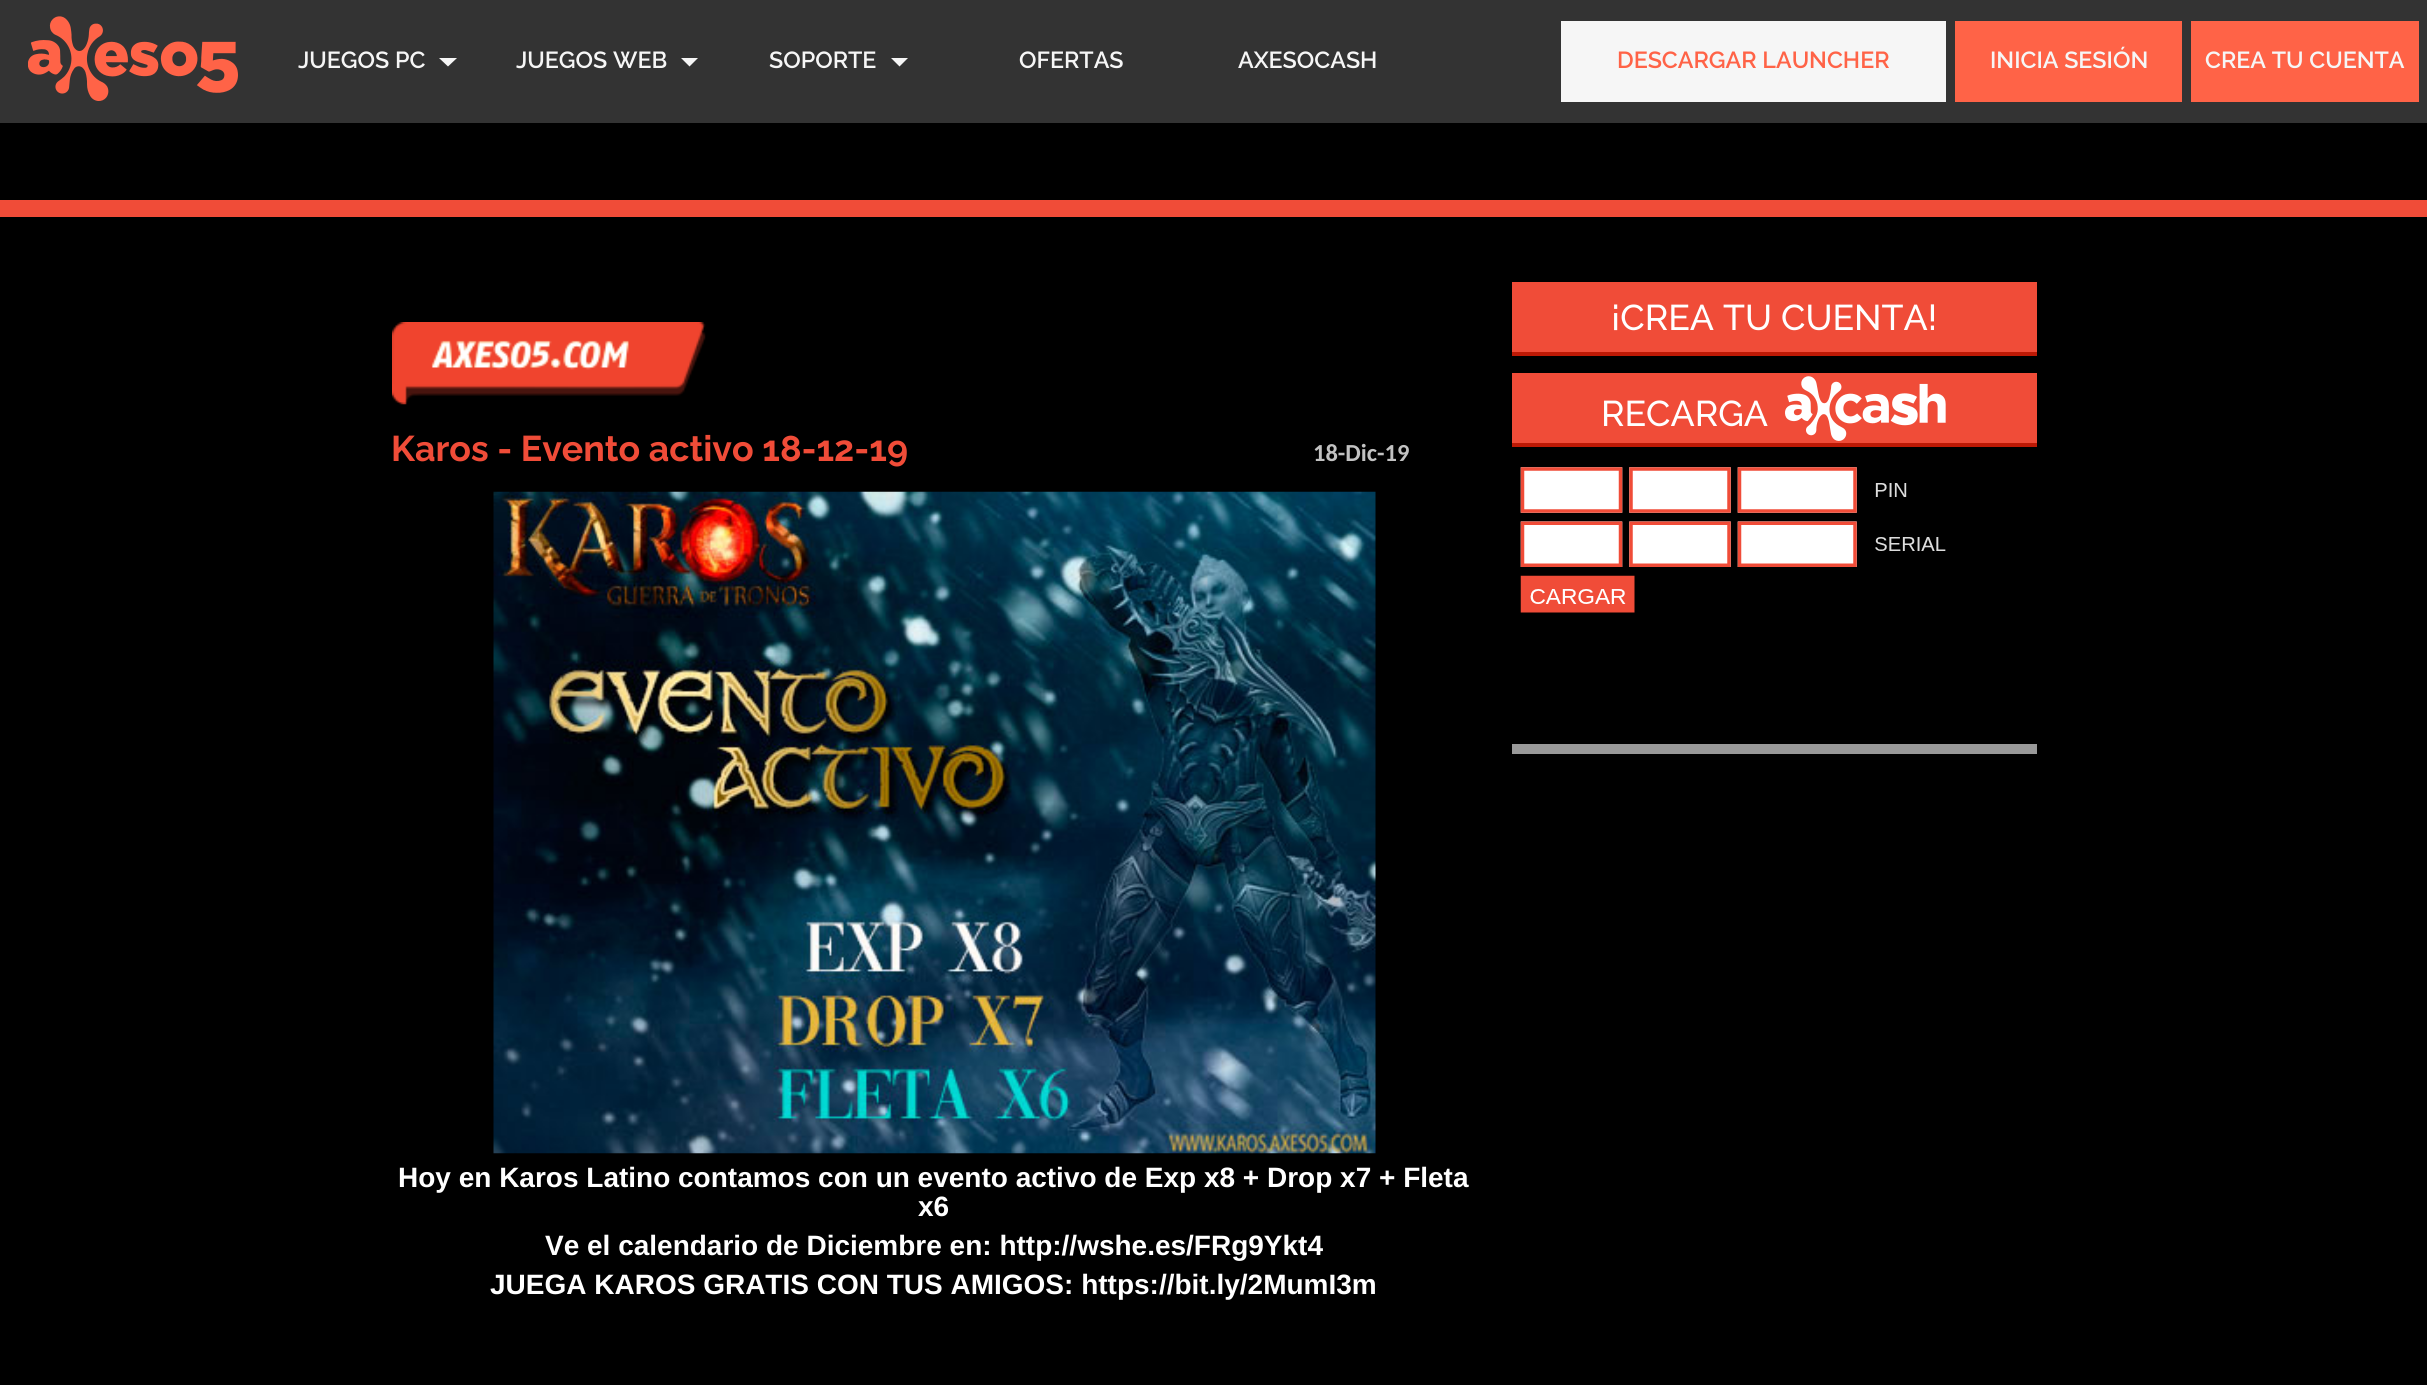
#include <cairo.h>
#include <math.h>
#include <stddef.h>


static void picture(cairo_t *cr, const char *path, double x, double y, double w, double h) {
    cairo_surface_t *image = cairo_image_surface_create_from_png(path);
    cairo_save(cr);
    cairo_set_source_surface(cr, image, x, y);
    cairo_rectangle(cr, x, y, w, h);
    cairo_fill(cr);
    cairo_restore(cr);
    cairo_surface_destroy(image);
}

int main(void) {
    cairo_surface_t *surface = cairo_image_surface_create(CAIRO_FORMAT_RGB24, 2427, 1385);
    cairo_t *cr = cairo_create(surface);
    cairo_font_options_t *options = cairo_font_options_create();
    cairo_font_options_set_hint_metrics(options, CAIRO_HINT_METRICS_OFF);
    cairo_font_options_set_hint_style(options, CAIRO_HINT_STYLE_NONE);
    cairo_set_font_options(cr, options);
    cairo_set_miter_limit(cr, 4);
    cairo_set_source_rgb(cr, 0, 0, 0);
    cairo_paint(cr);
    cairo_set_source_rgb(cr, 0.2, 0.2, 0.2);
    cairo_rectangle(cr, 0, 0, 2427, 123);
    cairo_fill(cr);
    picture(cr, "img1.png", 28, 16, 210, 85);
    cairo_select_font_face(cr, "Raleway SemiBold", CAIRO_FONT_SLANT_NORMAL, CAIRO_FONT_WEIGHT_NORMAL);
    cairo_set_font_size(cr, 23.25);
    cairo_set_source_rgb(cr, 0.961, 0.961, 0.961);
    cairo_move_to(cr, 298, 68);
    cairo_show_text(cr, "JUEGOS PC");
    cairo_new_path(cr);
    cairo_move_to(cr, 439, 58);
    cairo_line_to(cr, 457, 58);
    cairo_line_to(cr, 448, 66.5);
    cairo_close_path(cr);
    cairo_fill(cr);
    cairo_move_to(cr, 516, 68);
    cairo_show_text(cr, "JUEGOS WEB");
    cairo_new_path(cr);
    cairo_move_to(cr, 681, 58);
    cairo_line_to(cr, 698, 58);
    cairo_line_to(cr, 689.5, 66.5);
    cairo_close_path(cr);
    cairo_fill(cr);
    cairo_move_to(cr, 769, 68);
    cairo_show_text(cr, "SOPORTE");
    cairo_new_path(cr);
    cairo_move_to(cr, 891, 58);
    cairo_line_to(cr, 908, 58);
    cairo_line_to(cr, 899.5, 66.5);
    cairo_close_path(cr);
    cairo_fill(cr);
    cairo_move_to(cr, 1019, 68);
    cairo_show_text(cr, "OFERTAS");
    cairo_move_to(cr, 1238, 68);
    cairo_show_text(cr, "AXESOCASH");
    cairo_rectangle(cr, 1561, 21, 385, 81);
    cairo_fill(cr);
    cairo_set_source_rgb(cr, 1, 0.388, 0.278);
    cairo_move_to(cr, 1617, 68);
    cairo_show_text(cr, "DESCARGAR LAUNCHER");
    cairo_rectangle(cr, 1955, 21, 227, 81);
    cairo_fill(cr);
    cairo_set_source_rgb(cr, 0.961, 0.961, 0.961);
    cairo_move_to(cr, 1990, 68);
    cairo_show_text(cr, "INICIA SESIÓN");
    cairo_set_source_rgb(cr, 1, 0.388, 0.278);
    cairo_rectangle(cr, 2191, 21, 228, 81);
    cairo_fill(cr);
    cairo_set_source_rgb(cr, 0.961, 0.961, 0.961);
    cairo_move_to(cr, 2205, 68);
    cairo_show_text(cr, "CREA TU CUENTA");
    cairo_set_source_rgb(cr, 0.941, 0.298, 0.22);
    cairo_rectangle(cr, 0, 200, 2427, 17);
    cairo_fill(cr);
    cairo_rectangle(cr, 1512, 282, 525, 70);
    cairo_fill(cr);
    cairo_set_source_rgb(cr, 0.741, 0.098, 0.02);
    cairo_rectangle(cr, 1512, 352, 525, 4);
    cairo_fill(cr);
    cairo_select_font_face(cr, "Raleway Medium", CAIRO_FONT_SLANT_NORMAL, CAIRO_FONT_WEIGHT_NORMAL);
    cairo_set_font_size(cr, 35.75);
    cairo_set_source_rgb(cr, 1, 1, 1);
    cairo_move_to(cr, 1611, 330);
    cairo_show_text(cr, "¡CREA TU CUENTA!");
    cairo_set_source_rgb(cr, 0.941, 0.298, 0.22);
    cairo_rectangle(cr, 1512, 373, 525, 70);
    cairo_fill(cr);
    cairo_set_source_rgb(cr, 0.741, 0.098, 0.02);
    cairo_rectangle(cr, 1512, 443, 525, 4);
    cairo_fill(cr);
    cairo_set_source_rgb(cr, 1, 1, 1);
    cairo_move_to(cr, 1601, 426);
    cairo_show_text(cr, "RECARGA");
    picture(cr, "img2.png", 1785, 376, 161, 65);
    picture(cr, "img3.png", 1520, 467, 426, 146);
    cairo_set_source_rgb(cr, 0.6, 0.6, 0.6);
    cairo_rectangle(cr, 1512, 744, 525, 10);
    cairo_fill(cr);
    picture(cr, "img4.png", 392, 322, 314, 83);
    cairo_select_font_face(cr, "Raleway", CAIRO_FONT_SLANT_NORMAL, CAIRO_FONT_WEIGHT_BOLD);
    cairo_set_source_rgb(cr, 0.941, 0.298, 0.22);
    cairo_move_to(cr, 391, 461);
    cairo_show_text(cr, "Karos - Evento activo 18-12-19");
    cairo_select_font_face(cr, "Carlito", CAIRO_FONT_SLANT_NORMAL, CAIRO_FONT_WEIGHT_BOLD);
    cairo_set_font_size(cr, 24.5);
    cairo_set_source_rgb(cr, 0.761, 0.761, 0.761);
    cairo_move_to(cr, 1313, 461);
    cairo_show_text(cr, "18-Dic-19");
    picture(cr, "img5.png", 493, 491, 883, 663);
    cairo_select_font_face(cr, "Liberation Sans", CAIRO_FONT_SLANT_NORMAL, CAIRO_FONT_WEIGHT_BOLD);
    cairo_set_font_size(cr, 28);
    cairo_set_source_rgb(cr, 1, 1, 1);
    cairo_move_to(cr, 398, 1187);
    cairo_show_text(cr, "Hoy en Karos Latino contamos con un evento activo de Exp x8 + Drop x7 + Fleta");
    cairo_move_to(cr, 918, 1216);
    cairo_show_text(cr, "x6");
    cairo_move_to(cr, 545, 1255);
    cairo_show_text(cr, "Ve el calendario de Diciembre en: http://wshe.es/FRg9Ykt4");
    cairo_move_to(cr, 490, 1294);
    cairo_show_text(cr, "JUEGA KAROS GRATIS CON TUS AMIGOS: https://bit.ly/2MumI3m");
    cairo_surface_write_to_png(surface, "page.png");
    cairo_font_options_destroy(options);
    cairo_destroy(cr);
    cairo_surface_destroy(surface);
    return 0;
}
